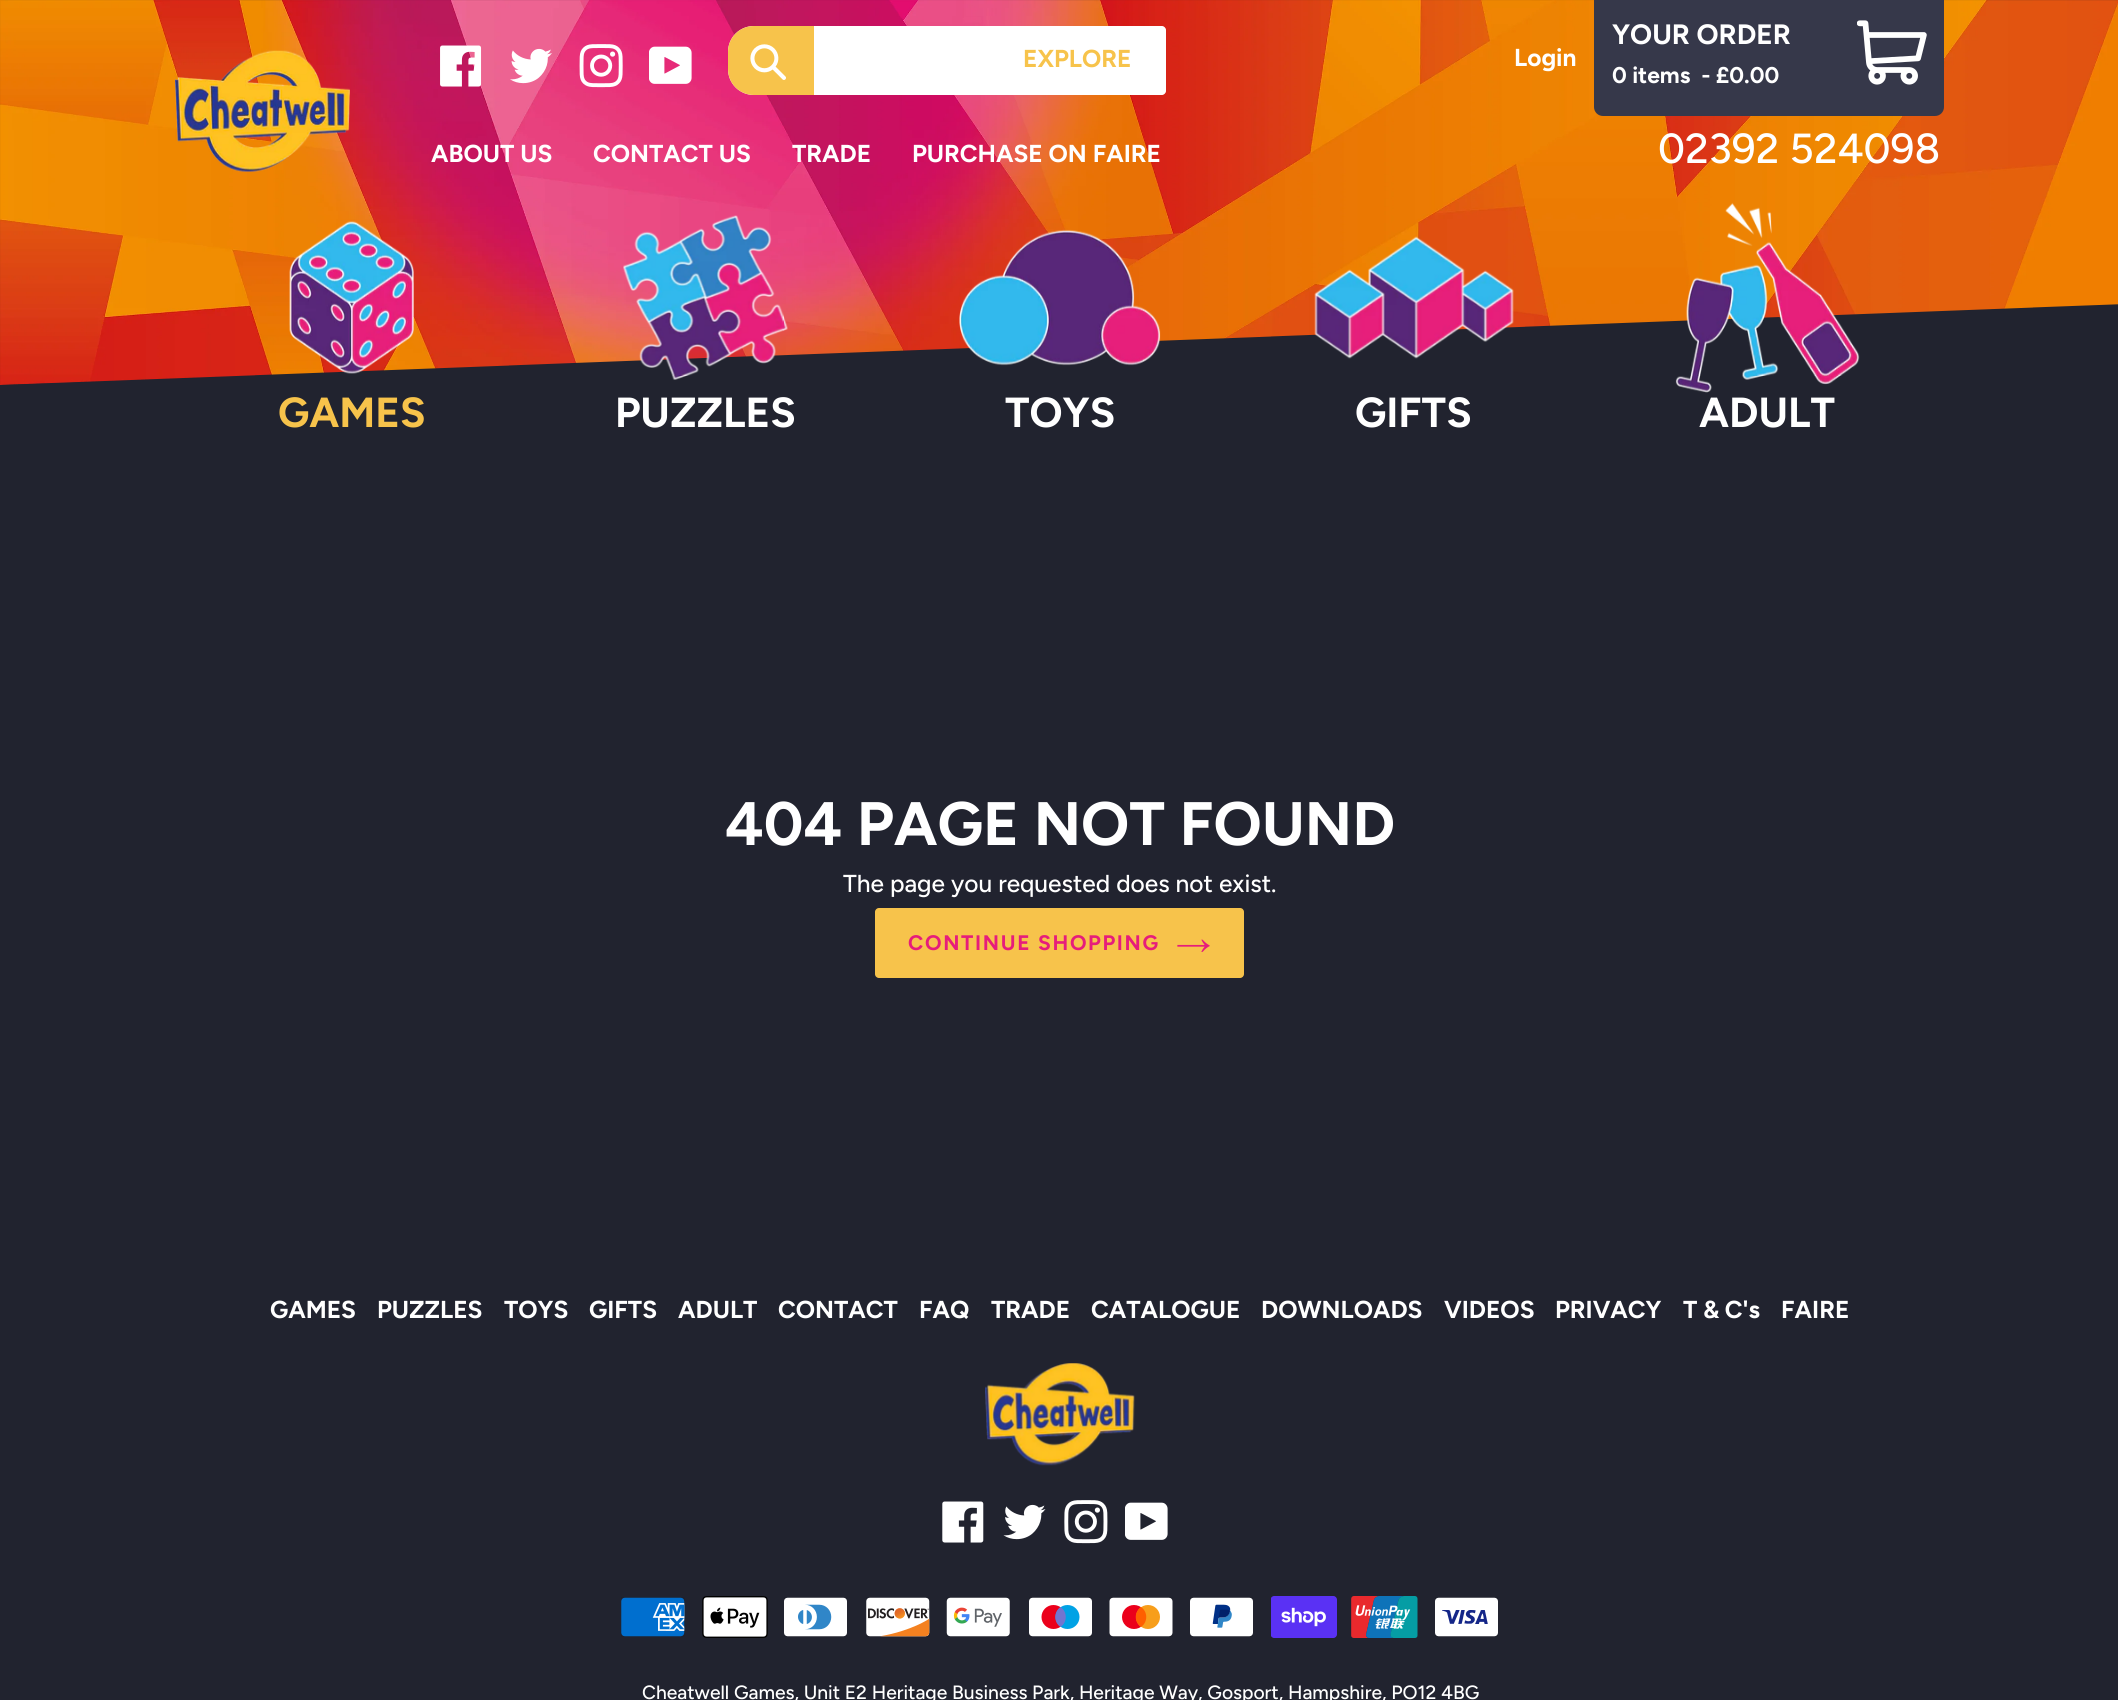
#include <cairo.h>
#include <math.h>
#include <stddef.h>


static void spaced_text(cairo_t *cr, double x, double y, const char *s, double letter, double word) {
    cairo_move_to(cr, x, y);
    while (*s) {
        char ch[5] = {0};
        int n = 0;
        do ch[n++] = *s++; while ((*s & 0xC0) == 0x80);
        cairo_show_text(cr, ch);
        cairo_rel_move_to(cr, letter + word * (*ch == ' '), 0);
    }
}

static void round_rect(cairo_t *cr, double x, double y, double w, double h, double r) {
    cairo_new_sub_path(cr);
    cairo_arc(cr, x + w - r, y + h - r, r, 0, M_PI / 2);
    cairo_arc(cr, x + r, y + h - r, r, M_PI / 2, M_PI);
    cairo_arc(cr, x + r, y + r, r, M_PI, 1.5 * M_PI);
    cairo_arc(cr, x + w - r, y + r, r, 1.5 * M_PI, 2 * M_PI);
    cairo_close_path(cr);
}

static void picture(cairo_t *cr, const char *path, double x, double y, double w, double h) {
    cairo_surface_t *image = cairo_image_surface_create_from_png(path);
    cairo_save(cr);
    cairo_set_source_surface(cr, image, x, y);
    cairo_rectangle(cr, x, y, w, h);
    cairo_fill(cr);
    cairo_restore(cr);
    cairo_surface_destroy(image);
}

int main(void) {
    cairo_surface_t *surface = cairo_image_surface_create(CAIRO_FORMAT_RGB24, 2118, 1700);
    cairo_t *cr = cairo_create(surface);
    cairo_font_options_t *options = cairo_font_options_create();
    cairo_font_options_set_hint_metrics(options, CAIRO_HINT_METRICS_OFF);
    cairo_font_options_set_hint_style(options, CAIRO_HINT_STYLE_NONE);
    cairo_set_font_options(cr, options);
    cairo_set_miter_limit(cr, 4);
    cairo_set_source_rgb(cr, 0.129, 0.137, 0.184);
    cairo_paint(cr);
    picture(cr, "img1.png", 0, 0, 2118, 385);
    picture(cr, "img2.png", 175, 50, 175, 122);
    picture(cr, "img3.png", 440, 45, 42, 42);
    picture(cr, "img4.png", 510, 48, 42, 36);
    picture(cr, "img5.png", 579, 44, 44, 44);
    picture(cr, "img6.png", 649, 46, 43, 38);
    cairo_set_source_rgb(cr, 1, 1, 1);
    cairo_new_path(cr);
    cairo_move_to(cr, 754, 26);
    cairo_line_to(cr, 1162, 26);
    cairo_curve_to(cr, 1164, 26, 1166, 28, 1166, 30);
    cairo_line_to(cr, 1166, 91);
    cairo_curve_to(cr, 1166, 93, 1164, 95, 1162, 95);
    cairo_line_to(cr, 754, 95);
    cairo_curve_to(cr, 739.5, 95, 728, 83.5, 728, 69);
    cairo_line_to(cr, 728, 52);
    cairo_curve_to(cr, 728, 37.5, 739.5, 26, 754, 26);
    cairo_close_path(cr);
    cairo_fill(cr);
    cairo_set_source_rgb(cr, 0.965, 0.765, 0.294);
    cairo_new_path(cr);
    cairo_move_to(cr, 754, 26);
    cairo_line_to(cr, 814, 26);
    cairo_line_to(cr, 814, 95);
    cairo_line_to(cr, 754, 95);
    cairo_curve_to(cr, 739.5, 95, 728, 83.5, 728, 69);
    cairo_line_to(cr, 728, 52);
    cairo_curve_to(cr, 728, 37.5, 739.5, 26, 754, 26);
    cairo_close_path(cr);
    cairo_fill(cr);
    picture(cr, "img7.png", 750, 44, 36, 36);
    cairo_select_font_face(cr, "Figtree", CAIRO_FONT_SLANT_NORMAL, CAIRO_FONT_WEIGHT_BOLD);
    cairo_set_font_size(cr, 24.5);
    cairo_move_to(cr, 1023, 67);
    cairo_show_text(cr, "EXPLORE");
    cairo_set_source_rgb(cr, 1, 1, 1);
    cairo_move_to(cr, 431, 162);
    cairo_show_text(cr, "ABOUT US");
    cairo_move_to(cr, 593, 162);
    cairo_show_text(cr, "CONTACT US");
    cairo_move_to(cr, 792, 162);
    cairo_show_text(cr, "TRADE");
    cairo_move_to(cr, 912, 162);
    cairo_show_text(cr, "PURCHASE ON FAIRE");
    cairo_move_to(cr, 1514, 66);
    cairo_show_text(cr, "Login");
    cairo_set_source_rgb(cr, 0.212, 0.22, 0.29);
    cairo_new_path(cr);
    cairo_move_to(cr, 1594, 0);
    cairo_line_to(cr, 1944, 0);
    cairo_line_to(cr, 1944, 107);
    cairo_curve_to(cr, 1944, 112, 1940, 116, 1935, 116);
    cairo_line_to(cr, 1603, 116);
    cairo_curve_to(cr, 1598, 116, 1594, 112, 1594, 107);
    cairo_close_path(cr);
    cairo_fill(cr);
    cairo_set_font_size(cr, 28);
    cairo_set_source_rgb(cr, 1, 1, 1);
    cairo_move_to(cr, 1612, 44);
    cairo_show_text(cr, "YOUR ORDER");
    cairo_set_font_size(cr, 22.75);
    cairo_move_to(cr, 1612, 83);
    cairo_show_text(cr, "0 items  - £0.00");
    picture(cr, "img8.png", 1857, 20, 70, 65);
    cairo_select_font_face(cr, "Figtree Medium", CAIRO_FONT_SLANT_NORMAL, CAIRO_FONT_WEIGHT_NORMAL);
    cairo_set_font_size(cr, 42);
    cairo_move_to(cr, 1658, 163);
    cairo_show_text(cr, "02392 524098");
    picture(cr, "img9.png", 289, 221, 125, 153);
    cairo_select_font_face(cr, "Figtree", CAIRO_FONT_SLANT_NORMAL, CAIRO_FONT_WEIGHT_BOLD);
    cairo_set_source_rgb(cr, 0.965, 0.765, 0.294);
    cairo_move_to(cr, 278, 427);
    cairo_show_text(cr, "GAMES");
    picture(cr, "img10.png", 623, 215, 165, 165);
    cairo_set_source_rgb(cr, 1, 1, 1);
    cairo_move_to(cr, 615, 427);
    cairo_show_text(cr, "PUZZLES");
    picture(cr, "img11.png", 959, 229, 202, 137);
    cairo_move_to(cr, 1005, 427);
    cairo_show_text(cr, "TOYS");
    picture(cr, "img12.png", 1314, 236, 200, 123);
    cairo_move_to(cr, 1355, 427);
    cairo_show_text(cr, "GIFTS");
    picture(cr, "img13.png", 1675, 202, 185, 191);
    cairo_move_to(cr, 1699, 427);
    cairo_show_text(cr, "ADULT");
    cairo_set_font_size(cr, 61.25);
    cairo_move_to(cr, 725, 845);
    cairo_show_text(cr, "404 PAGE NOT FOUND");
    cairo_select_font_face(cr, "Figtree Medium", CAIRO_FONT_SLANT_NORMAL, CAIRO_FONT_WEIGHT_NORMAL);
    cairo_set_font_size(cr, 24.5);
    cairo_move_to(cr, 843, 892);
    cairo_show_text(cr, "The page you requested does not exist.");
    cairo_set_source_rgb(cr, 0.965, 0.765, 0.294);
    round_rect(cr, 875, 908, 369, 70, 4);
    cairo_fill(cr);
    cairo_select_font_face(cr, "Figtree", CAIRO_FONT_SLANT_NORMAL, CAIRO_FONT_WEIGHT_BOLD);
    cairo_set_font_size(cr, 21);
    cairo_set_source_rgb(cr, 0.902, 0.114, 0.482);
    spaced_text(cr, 908, 950, "CONTINUE SHOPPING", 1.7, 0);
    picture(cr, "img14.png", 1177, 939, 33, 13);
    cairo_set_font_size(cr, 24.5);
    cairo_set_source_rgb(cr, 1, 1, 1);
    cairo_move_to(cr, 270, 1318);
    cairo_show_text(cr, "GAMES");
    cairo_move_to(cr, 377, 1318);
    cairo_show_text(cr, "PUZZLES");
    cairo_move_to(cr, 504, 1318);
    cairo_show_text(cr, "TOYS");
    cairo_move_to(cr, 589, 1318);
    cairo_show_text(cr, "GIFTS");
    cairo_move_to(cr, 678, 1318);
    cairo_show_text(cr, "ADULT");
    cairo_move_to(cr, 778, 1318);
    cairo_show_text(cr, "CONTACT");
    cairo_move_to(cr, 919, 1318);
    cairo_show_text(cr, "FAQ");
    cairo_move_to(cr, 991, 1318);
    cairo_show_text(cr, "TRADE");
    cairo_move_to(cr, 1091, 1318);
    cairo_show_text(cr, "CATALOGUE");
    cairo_move_to(cr, 1261, 1318);
    cairo_show_text(cr, "DOWNLOADS");
    cairo_move_to(cr, 1444, 1318);
    cairo_show_text(cr, "VIDEOS");
    cairo_move_to(cr, 1555, 1318);
    cairo_show_text(cr, "PRIVACY");
    cairo_move_to(cr, 1683, 1318);
    cairo_show_text(cr, "T & C's");
    cairo_move_to(cr, 1781, 1318);
    cairo_show_text(cr, "FAIRE");
    picture(cr, "img15.png", 985, 1363, 150, 103);
    picture(cr, "img16.png", 942, 1501, 42, 42);
    picture(cr, "img17.png", 1003, 1504, 43, 36);
    picture(cr, "img18.png", 1064, 1500, 44, 44);
    picture(cr, "img19.png", 1125, 1502, 43, 38);
    picture(cr, "img20.png", 621, 1597, 64, 40);
    picture(cr, "img21.png", 702, 1596, 66, 42);
    picture(cr, "img22.png", 784, 1597, 63, 40);
    picture(cr, "img23.png", 866, 1597, 64, 40);
    picture(cr, "img24.png", 946, 1597, 64, 40);
    picture(cr, "img25.png", 1029, 1597, 63, 40);
    picture(cr, "img26.png", 1109, 1597, 64, 40);
    picture(cr, "img27.png", 1190, 1597, 63, 40);
    picture(cr, "img28.png", 1271, 1596, 66, 42);
    picture(cr, "img29.png", 1351, 1596, 67, 42);
    picture(cr, "img30.png", 1435, 1597, 63, 40);
    cairo_select_font_face(cr, "Figtree Medium", CAIRO_FONT_SLANT_NORMAL, CAIRO_FONT_WEIGHT_NORMAL);
    cairo_set_font_size(cr, 19.25);
    cairo_move_to(cr, 642, 1699);
    cairo_show_text(cr, "Cheatwell Games, Unit E2 Heritage Business Park, Heritage Way, Gosport, Hampshire, PO12 4BG");
    cairo_surface_write_to_png(surface, "page.png");
    cairo_font_options_destroy(options);
    cairo_destroy(cr);
    cairo_surface_destroy(surface);
    return 0;
}
